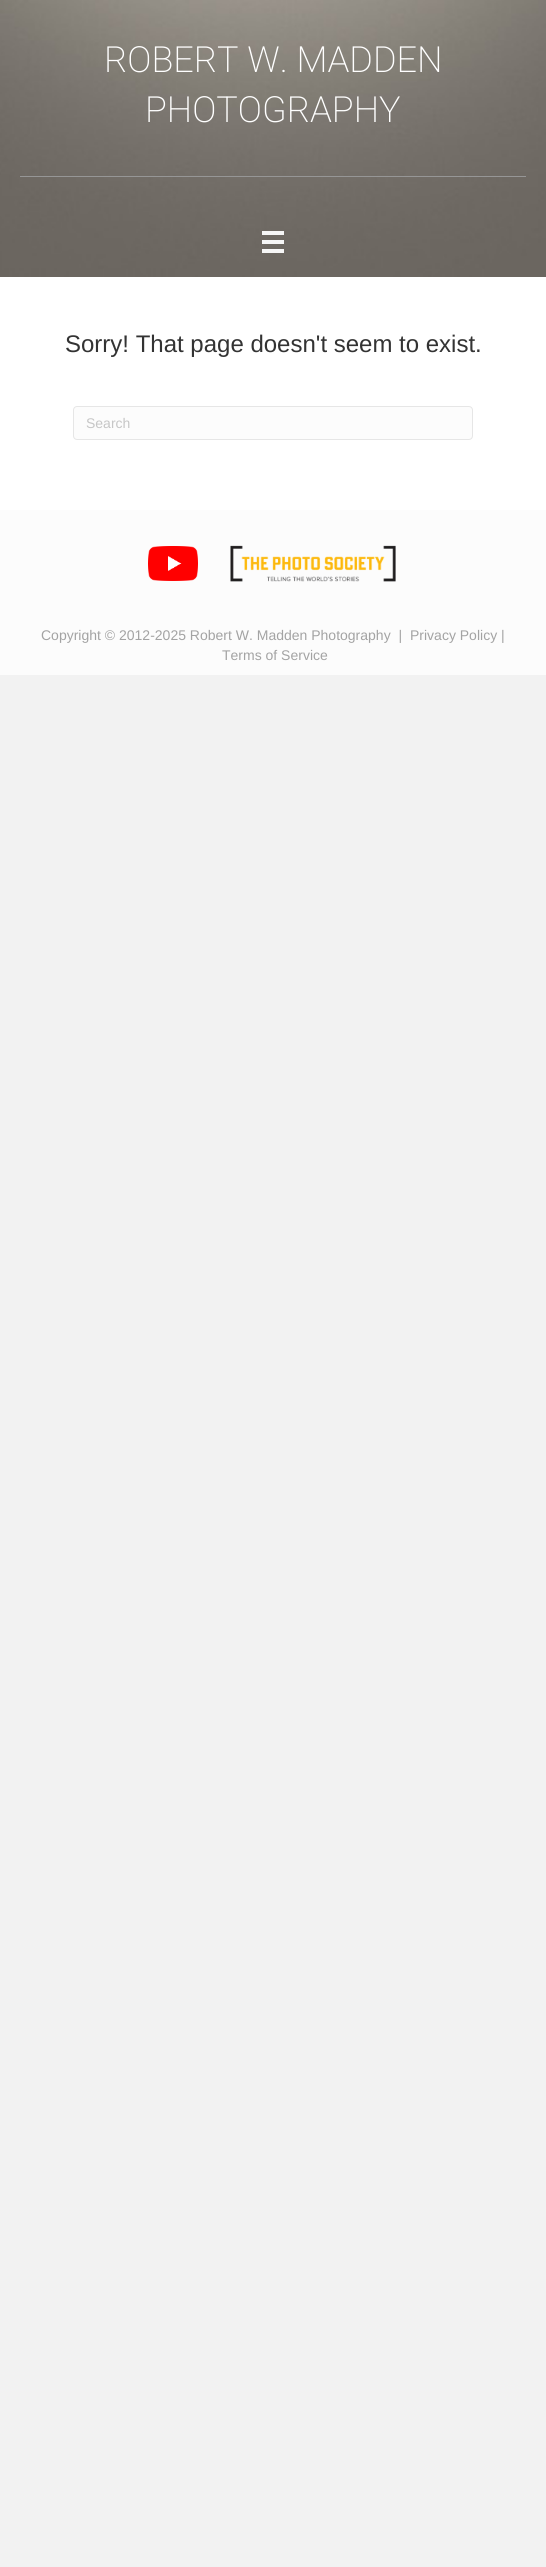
#include <cairo.h>
#include <math.h>
#include <stddef.h>


static void round_rect(cairo_t *cr, double x, double y, double w, double h, double r) {
    cairo_new_sub_path(cr);
    cairo_arc(cr, x + w - r, y + h - r, r, 0, M_PI / 2);
    cairo_arc(cr, x + r, y + h - r, r, M_PI / 2, M_PI);
    cairo_arc(cr, x + r, y + r, r, M_PI, 1.5 * M_PI);
    cairo_arc(cr, x + w - r, y + r, r, 1.5 * M_PI, 2 * M_PI);
    cairo_close_path(cr);
}

static void picture(cairo_t *cr, const char *path, double x, double y, double w, double h) {
    cairo_surface_t *image = cairo_image_surface_create_from_png(path);
    cairo_save(cr);
    cairo_set_source_surface(cr, image, x, y);
    cairo_rectangle(cr, x, y, w, h);
    cairo_fill(cr);
    cairo_restore(cr);
    cairo_surface_destroy(image);
}

int main(void) {
    cairo_surface_t *surface = cairo_image_surface_create(CAIRO_FORMAT_RGB24, 546, 2567);
    cairo_t *cr = cairo_create(surface);
    cairo_font_options_t *options = cairo_font_options_create();
    cairo_font_options_set_hint_metrics(options, CAIRO_HINT_METRICS_OFF);
    cairo_font_options_set_hint_style(options, CAIRO_HINT_STYLE_NONE);
    cairo_set_font_options(cr, options);
    cairo_set_miter_limit(cr, 4);
    cairo_set_source_rgb(cr, 0.949, 0.949, 0.949);
    cairo_paint(cr);
    picture(cr, "img1.png", 0, 0, 546, 277);
    cairo_select_font_face(cr, "Roboto ExtraLight", CAIRO_FONT_SLANT_NORMAL, CAIRO_FONT_WEIGHT_NORMAL);
    cairo_set_font_size(cr, 36);
    cairo_set_source_rgb(cr, 1, 1, 1);
    cairo_move_to(cr, 104, 72);
    cairo_show_text(cr, "ROBERT W. MADDEN");
    cairo_move_to(cr, 145, 122);
    cairo_show_text(cr, "PHOTOGRAPHY");
    cairo_set_source_rgb(cr, 0.588, 0.588, 0.588);
    cairo_rectangle(cr, 20, 176, 506, 1);
    cairo_fill(cr);
    cairo_set_source_rgb(cr, 0.961, 0.961, 0.961);
    cairo_rectangle(cr, 262, 231, 22, 4);
    cairo_fill(cr);
    cairo_rectangle(cr, 262, 240, 22, 4);
    cairo_fill(cr);
    cairo_rectangle(cr, 262, 249, 22, 4);
    cairo_fill(cr);
    cairo_set_source_rgb(cr, 1, 1, 1);
    cairo_rectangle(cr, 0, 277, 546, 233);
    cairo_fill(cr);
    cairo_select_font_face(cr, "Liberation Sans", CAIRO_FONT_SLANT_NORMAL, CAIRO_FONT_WEIGHT_NORMAL);
    cairo_set_font_size(cr, 24);
    cairo_set_source_rgb(cr, 0.2, 0.2, 0.2);
    cairo_move_to(cr, 65, 352);
    cairo_show_text(cr, "Sorry! That page doesn't seem to exist.");
    cairo_set_source_rgb(cr, 0.988, 0.988, 0.988);
    round_rect(cr, 73.5, 406.5, 399, 33, 3.5);
    cairo_fill_preserve(cr);
    cairo_set_source_rgb(cr, 0.902, 0.902, 0.902);
    cairo_set_line_width(cr, 1);
    cairo_stroke(cr);
    cairo_set_font_size(cr, 14);
    cairo_set_source_rgb(cr, 0.776, 0.776, 0.776);
    cairo_move_to(cr, 86, 428);
    cairo_show_text(cr, "Search");
    cairo_set_source_rgb(cr, 0.988, 0.988, 0.988);
    cairo_rectangle(cr, 0, 510, 546, 165);
    cairo_fill(cr);
    picture(cr, "img2.png", 148, 546, 50, 35);
    picture(cr, "img3.png", 230, 545, 166, 37);
    cairo_set_source_rgb(cr, 0.639, 0.639, 0.639);
    cairo_move_to(cr, 41, 640);
    cairo_show_text(cr, "Copyright © 2012-2025 Robert W. Madden Photography  |");
    cairo_move_to(cr, 410, 640);
    cairo_show_text(cr, "Privacy Policy |");
    cairo_move_to(cr, 222, 660);
    cairo_show_text(cr, "Terms of Service");
    cairo_surface_write_to_png(surface, "page.png");
    cairo_font_options_destroy(options);
    cairo_destroy(cr);
    cairo_surface_destroy(surface);
    return 0;
}
